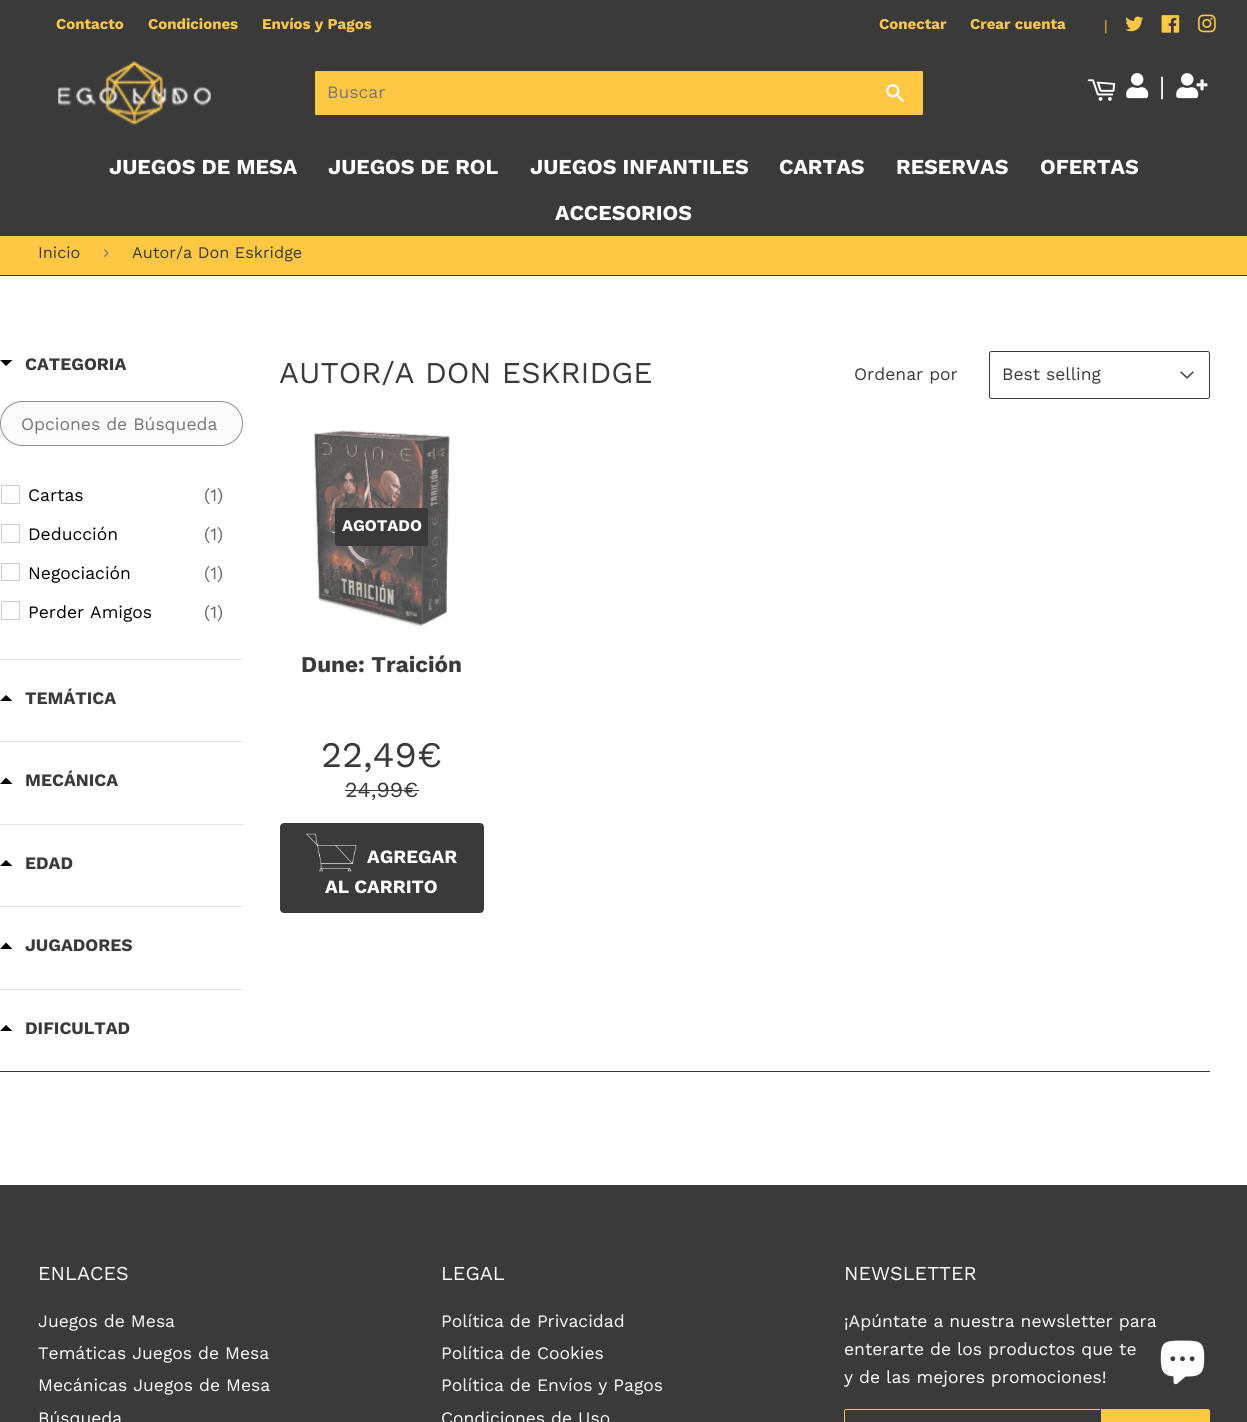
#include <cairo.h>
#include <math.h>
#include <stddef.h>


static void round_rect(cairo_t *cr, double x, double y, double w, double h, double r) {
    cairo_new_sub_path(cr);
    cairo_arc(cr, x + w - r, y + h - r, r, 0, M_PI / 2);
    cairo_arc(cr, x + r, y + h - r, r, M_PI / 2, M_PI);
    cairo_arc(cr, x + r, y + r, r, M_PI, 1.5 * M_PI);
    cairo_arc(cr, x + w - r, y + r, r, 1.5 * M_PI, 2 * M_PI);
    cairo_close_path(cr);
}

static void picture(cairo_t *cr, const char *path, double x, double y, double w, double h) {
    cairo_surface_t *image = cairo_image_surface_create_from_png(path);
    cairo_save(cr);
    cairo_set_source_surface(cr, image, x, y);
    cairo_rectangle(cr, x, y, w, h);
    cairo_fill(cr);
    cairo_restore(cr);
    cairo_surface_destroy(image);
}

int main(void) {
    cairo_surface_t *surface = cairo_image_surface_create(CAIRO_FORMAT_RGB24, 1247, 1422);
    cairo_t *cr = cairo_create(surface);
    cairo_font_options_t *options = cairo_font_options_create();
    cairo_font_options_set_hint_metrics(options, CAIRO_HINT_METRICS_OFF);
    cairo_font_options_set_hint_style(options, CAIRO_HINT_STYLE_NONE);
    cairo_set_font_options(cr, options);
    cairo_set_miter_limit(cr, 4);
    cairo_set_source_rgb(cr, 1, 1, 1);
    cairo_paint(cr);
    cairo_set_source_rgb(cr, 0.227, 0.227, 0.227);
    cairo_rectangle(cr, 0, 0, 1247, 236);
    cairo_fill(cr);
    cairo_select_font_face(cr, "Work Sans", CAIRO_FONT_SLANT_NORMAL, CAIRO_FONT_WEIGHT_BOLD);
    cairo_set_font_size(cr, 15);
    cairo_set_source_rgb(cr, 1, 0.784, 0.267);
    cairo_move_to(cr, 56, 29);
    cairo_show_text(cr, "Contacto");
    cairo_move_to(cr, 148, 29);
    cairo_show_text(cr, "Condiciones");
    cairo_move_to(cr, 262, 29);
    cairo_show_text(cr, "Envíos y Pagos");
    cairo_move_to(cr, 879, 29);
    cairo_show_text(cr, "Conectar");
    cairo_move_to(cr, 970, 29);
    cairo_show_text(cr, "Crear cuenta");
    cairo_select_font_face(cr, "Work Sans", CAIRO_FONT_SLANT_NORMAL, CAIRO_FONT_WEIGHT_NORMAL);
    cairo_move_to(cr, 1104, 31);
    cairo_show_text(cr, "|");
    picture(cr, "img1.png", 1125, 16, 19, 16);
    picture(cr, "img2.png", 1161, 15, 19, 18);
    picture(cr, "img3.png", 1198, 14, 18, 19);
    picture(cr, "img4.png", 58, 61, 153, 65);
    round_rect(cr, 314.5, 70.5, 609, 45, 2);
    cairo_fill_preserve(cr);
    cairo_set_source_rgb(cr, 0.227, 0.227, 0.227);
    cairo_set_line_width(cr, 1);
    cairo_stroke(cr);
    cairo_set_font_size(cr, 17.5);
    cairo_set_source_rgb(cr, 0.459, 0.459, 0.459);
    cairo_move_to(cr, 327, 98);
    cairo_show_text(cr, "Buscar");
    picture(cr, "img5.png", 886, 84, 18, 18);
    picture(cr, "img6.png", 1087, 79, 29, 22);
    picture(cr, "img7.png", 1126, 73, 23, 26);
    cairo_set_font_size(cr, 25);
    cairo_set_source_rgb(cr, 1, 1, 1);
    cairo_move_to(cr, 1159, 95);
    cairo_show_text(cr, "|");
    picture(cr, "img8.png", 1176, 73, 32, 26);
    cairo_select_font_face(cr, "Work Sans", CAIRO_FONT_SLANT_NORMAL, CAIRO_FONT_WEIGHT_BOLD);
    cairo_set_font_size(cr, 21.25);
    cairo_move_to(cr, 109, 174);
    cairo_show_text(cr, "JUEGOS DE MESA");
    cairo_move_to(cr, 328, 174);
    cairo_show_text(cr, "JUEGOS DE ROL");
    cairo_move_to(cr, 530, 174);
    cairo_show_text(cr, "JUEGOS INFANTILES");
    cairo_move_to(cr, 779, 174);
    cairo_show_text(cr, "CARTAS");
    cairo_move_to(cr, 896, 174);
    cairo_show_text(cr, "RESERVAS");
    cairo_move_to(cr, 1040, 174);
    cairo_show_text(cr, "OFERTAS");
    cairo_move_to(cr, 555, 220);
    cairo_show_text(cr, "ACCESORIOS");
    cairo_set_source_rgb(cr, 1, 0.784, 0.267);
    cairo_rectangle(cr, 0, 236, 1247, 39);
    cairo_fill(cr);
    cairo_set_source_rgb(cr, 0.227, 0.227, 0.227);
    cairo_rectangle(cr, 0, 275, 1247, 1);
    cairo_fill(cr);
    cairo_select_font_face(cr, "Work Sans", CAIRO_FONT_SLANT_NORMAL, CAIRO_FONT_WEIGHT_NORMAL);
    cairo_set_font_size(cr, 16.25);
    cairo_move_to(cr, 38, 258);
    cairo_show_text(cr, "Inicio");
    cairo_select_font_face(cr, "Liberation Sans", CAIRO_FONT_SLANT_NORMAL, CAIRO_FONT_WEIGHT_NORMAL);
    cairo_set_font_size(cr, 18.75);
    cairo_set_source_rgb(cr, 0.459, 0.459, 0.459);
    cairo_move_to(cr, 103, 258);
    cairo_show_text(cr, "›");
    cairo_select_font_face(cr, "Work Sans", CAIRO_FONT_SLANT_NORMAL, CAIRO_FONT_WEIGHT_NORMAL);
    cairo_set_font_size(cr, 16.25);
    cairo_set_source_rgb(cr, 0.227, 0.227, 0.227);
    cairo_move_to(cr, 132, 258);
    cairo_show_text(cr, "Autor/a Don Eskridge");
    cairo_set_source_rgb(cr, 0, 0, 0);
    cairo_new_path(cr);
    cairo_move_to(cr, 0, 360);
    cairo_line_to(cr, 12.5, 360);
    cairo_line_to(cr, 6, 366);
    cairo_close_path(cr);
    cairo_fill(cr);
    cairo_select_font_face(cr, "Work Sans", CAIRO_FONT_SLANT_NORMAL, CAIRO_FONT_WEIGHT_BOLD);
    cairo_set_font_size(cr, 17.5);
    cairo_set_source_rgb(cr, 0.227, 0.227, 0.227);
    cairo_move_to(cr, 25, 370);
    cairo_show_text(cr, "CATEGORIA");
    cairo_set_source_rgb(cr, 0.984, 0.984, 0.984);
    round_rect(cr, 0.5, 401.5, 242, 44, 22);
    cairo_fill_preserve(cr);
    cairo_set_source_rgb(cr, 0.561, 0.561, 0.561);
    cairo_stroke(cr);
    cairo_select_font_face(cr, "Work Sans", CAIRO_FONT_SLANT_NORMAL, CAIRO_FONT_WEIGHT_NORMAL);
    cairo_set_source_rgb(cr, 0.459, 0.459, 0.459);
    cairo_move_to(cr, 21, 430);
    cairo_show_text(cr, "Opciones de Búsqueda");
    cairo_rectangle(cr, 1.5, 485.5, 18, 18);
    cairo_set_source_rgb(cr, 0.8, 0.8, 0.8);
    cairo_stroke(cr);
    cairo_set_source_rgb(cr, 0, 0, 0);
    cairo_move_to(cr, 28, 501);
    cairo_show_text(cr, "Cartas");
    cairo_set_source_rgb(cr, 0.4, 0.4, 0.4);
    cairo_move_to(cr, 204, 501);
    cairo_show_text(cr, "(1)");
    cairo_rectangle(cr, 1.5, 524.5, 18, 18);
    cairo_set_source_rgb(cr, 0.8, 0.8, 0.8);
    cairo_stroke(cr);
    cairo_set_source_rgb(cr, 0, 0, 0);
    cairo_move_to(cr, 28, 540);
    cairo_show_text(cr, "Deducción");
    cairo_set_source_rgb(cr, 0.4, 0.4, 0.4);
    cairo_move_to(cr, 204, 540);
    cairo_show_text(cr, "(1)");
    cairo_rectangle(cr, 1.5, 563.5, 18, 17);
    cairo_set_source_rgb(cr, 0.8, 0.8, 0.8);
    cairo_stroke(cr);
    cairo_set_source_rgb(cr, 0, 0, 0);
    cairo_move_to(cr, 28, 579);
    cairo_show_text(cr, "Negociación");
    cairo_set_source_rgb(cr, 0.4, 0.4, 0.4);
    cairo_move_to(cr, 204, 579);
    cairo_show_text(cr, "(1)");
    cairo_rectangle(cr, 1.5, 601.5, 18, 18);
    cairo_set_source_rgb(cr, 0.8, 0.8, 0.8);
    cairo_stroke(cr);
    cairo_set_source_rgb(cr, 0, 0, 0);
    cairo_move_to(cr, 28, 618);
    cairo_show_text(cr, "Perder Amigos");
    cairo_set_source_rgb(cr, 0.4, 0.4, 0.4);
    cairo_move_to(cr, 204, 618);
    cairo_show_text(cr, "(1)");
    cairo_set_source_rgb(cr, 0.89, 0.89, 0.89);
    cairo_rectangle(cr, 0, 659, 243, 1);
    cairo_fill(cr);
    cairo_set_source_rgb(cr, 0, 0, 0);
    cairo_new_path(cr);
    cairo_move_to(cr, 12.5, 701);
    cairo_line_to(cr, 0, 701);
    cairo_line_to(cr, 6, 695);
    cairo_close_path(cr);
    cairo_fill(cr);
    cairo_select_font_face(cr, "Work Sans", CAIRO_FONT_SLANT_NORMAL, CAIRO_FONT_WEIGHT_BOLD);
    cairo_set_source_rgb(cr, 0.227, 0.227, 0.227);
    cairo_move_to(cr, 25, 704);
    cairo_show_text(cr, "TEMÁTICA");
    cairo_set_source_rgb(cr, 0.89, 0.89, 0.89);
    cairo_rectangle(cr, 0, 741, 243, 1);
    cairo_fill(cr);
    cairo_set_source_rgb(cr, 0, 0, 0);
    cairo_new_path(cr);
    cairo_move_to(cr, 12.5, 784);
    cairo_line_to(cr, 0, 784);
    cairo_line_to(cr, 6, 777.5);
    cairo_close_path(cr);
    cairo_fill(cr);
    cairo_set_source_rgb(cr, 0.227, 0.227, 0.227);
    cairo_move_to(cr, 25, 786);
    cairo_show_text(cr, "MECÁNICA");
    cairo_set_source_rgb(cr, 0.89, 0.89, 0.89);
    cairo_rectangle(cr, 0, 824, 243, 1);
    cairo_fill(cr);
    cairo_set_source_rgb(cr, 0, 0, 0);
    cairo_new_path(cr);
    cairo_move_to(cr, 12.5, 866);
    cairo_line_to(cr, 0, 866);
    cairo_line_to(cr, 6, 860);
    cairo_close_path(cr);
    cairo_fill(cr);
    cairo_set_source_rgb(cr, 0.227, 0.227, 0.227);
    cairo_move_to(cr, 25, 869);
    cairo_show_text(cr, "EDAD");
    cairo_set_source_rgb(cr, 0.89, 0.89, 0.89);
    cairo_rectangle(cr, 0, 906, 243, 1);
    cairo_fill(cr);
    cairo_set_source_rgb(cr, 0, 0, 0);
    cairo_new_path(cr);
    cairo_move_to(cr, 12.5, 949);
    cairo_line_to(cr, 0, 949);
    cairo_line_to(cr, 6, 942.5);
    cairo_close_path(cr);
    cairo_fill(cr);
    cairo_set_source_rgb(cr, 0.227, 0.227, 0.227);
    cairo_move_to(cr, 25, 951);
    cairo_show_text(cr, "JUGADORES");
    cairo_set_source_rgb(cr, 0.89, 0.89, 0.89);
    cairo_rectangle(cr, 0, 989, 243, 1);
    cairo_fill(cr);
    cairo_set_source_rgb(cr, 0, 0, 0);
    cairo_new_path(cr);
    cairo_move_to(cr, 12.5, 1031);
    cairo_line_to(cr, 0, 1031);
    cairo_line_to(cr, 6, 1025);
    cairo_close_path(cr);
    cairo_fill(cr);
    cairo_set_source_rgb(cr, 0.227, 0.227, 0.227);
    cairo_move_to(cr, 25, 1034);
    cairo_show_text(cr, "DIFICULTAD");
    cairo_select_font_face(cr, "Work Sans", CAIRO_FONT_SLANT_NORMAL, CAIRO_FONT_WEIGHT_NORMAL);
    cairo_set_font_size(cr, 30.25);
    cairo_move_to(cr, 279, 383);
    cairo_show_text(cr, "AUTOR/A DON ESKRIDGE");
    cairo_set_font_size(cr, 17.5);
    cairo_move_to(cr, 854, 380);
    cairo_show_text(cr, "Ordenar por");
    picture(cr, "img9.png", 1180, 371, 14, 8);
    round_rect(cr, 989.5, 351.5, 220, 47, 2);
    cairo_stroke(cr);
    cairo_move_to(cr, 1002, 380);
    cairo_show_text(cr, "Best selling");
    picture(cr, "img10.png", 314, 430, 137, 198);
    round_rect(cr, 335, 508, 93, 38, 2.5);
    cairo_fill(cr);
    cairo_select_font_face(cr, "Work Sans", CAIRO_FONT_SLANT_NORMAL, CAIRO_FONT_WEIGHT_BOLD);
    cairo_set_font_size(cr, 16.25);
    cairo_set_source_rgb(cr, 1, 1, 1);
    cairo_move_to(cr, 342, 531);
    cairo_show_text(cr, "AGOTADO");
    cairo_set_font_size(cr, 22.5);
    cairo_set_source_rgb(cr, 0.227, 0.227, 0.227);
    cairo_move_to(cr, 301, 672);
    cairo_show_text(cr, "Dune: Traición");
    cairo_select_font_face(cr, "Work Sans", CAIRO_FONT_SLANT_NORMAL, CAIRO_FONT_WEIGHT_NORMAL);
    cairo_set_font_size(cr, 36);
    cairo_move_to(cr, 321, 767);
    cairo_show_text(cr, "22,49€");
    cairo_set_font_size(cr, 21.5);
    cairo_move_to(cr, 345, 797);
    cairo_show_text(cr, "24,99€");
    cairo_rectangle(cr, 345, 790, 74, 1);
    cairo_fill(cr);
    round_rect(cr, 281.5, 824.5, 201, 87, 2.5);
    cairo_fill_preserve(cr);
    cairo_set_line_width(cr, 3);
    cairo_stroke(cr);
    picture(cr, "img11.png", 306, 833, 51, 39);
    cairo_select_font_face(cr, "Work Sans", CAIRO_FONT_SLANT_NORMAL, CAIRO_FONT_WEIGHT_BOLD);
    cairo_set_font_size(cr, 18.75);
    cairo_set_source_rgb(cr, 1, 1, 1);
    cairo_move_to(cr, 367, 863);
    cairo_show_text(cr, "AGREGAR");
    cairo_move_to(cr, 325, 893);
    cairo_show_text(cr, "AL CARRITO");
    cairo_set_source_rgb(cr, 0.227, 0.227, 0.227);
    cairo_rectangle(cr, 0, 1071, 1210, 1);
    cairo_fill(cr);
    cairo_rectangle(cr, 0, 1185, 1247, 237);
    cairo_fill(cr);
    cairo_select_font_face(cr, "Work Sans", CAIRO_FONT_SLANT_NORMAL, CAIRO_FONT_WEIGHT_NORMAL);
    cairo_set_font_size(cr, 19.75);
    cairo_set_source_rgb(cr, 1, 1, 1);
    cairo_move_to(cr, 38, 1280);
    cairo_show_text(cr, "ENLACES");
    cairo_set_font_size(cr, 17.5);
    cairo_move_to(cr, 38, 1327);
    cairo_show_text(cr, "Juegos de Mesa");
    cairo_move_to(cr, 38, 1359);
    cairo_show_text(cr, "Temáticas Juegos de Mesa");
    cairo_move_to(cr, 38, 1391);
    cairo_show_text(cr, "Mecánicas Juegos de Mesa");
    cairo_move_to(cr, 38, 1424);
    cairo_show_text(cr, "Búsqueda");
    cairo_set_font_size(cr, 19.75);
    cairo_move_to(cr, 441, 1280);
    cairo_show_text(cr, "LEGAL");
    cairo_set_font_size(cr, 17.5);
    cairo_move_to(cr, 441, 1327);
    cairo_show_text(cr, "Política de Privacidad");
    cairo_move_to(cr, 441, 1359);
    cairo_show_text(cr, "Política de Cookies");
    cairo_move_to(cr, 441, 1391);
    cairo_show_text(cr, "Política de Envíos y Pagos");
    cairo_move_to(cr, 441, 1424);
    cairo_show_text(cr, "Condiciones de Uso");
    cairo_set_font_size(cr, 19.75);
    cairo_move_to(cr, 844, 1280);
    cairo_show_text(cr, "NEWSLETTER");
    cairo_set_font_size(cr, 17.5);
    cairo_move_to(cr, 844, 1327);
    cairo_show_text(cr, "¡Apúntate a nuestra newsletter para");
    cairo_move_to(cr, 844, 1355);
    cairo_show_text(cr, "enterarte de los productos que te");
    cairo_move_to(cr, 844, 1383);
    cairo_show_text(cr, "y de las mejores promociones!");
    cairo_set_source_rgb(cr, 1, 0.784, 0.267);
    cairo_rectangle(cr, 845, 1409, 255, 1);
    cairo_fill(cr);
    cairo_rectangle(cr, 844, 1410, 1, 12);
    cairo_fill(cr);
    cairo_new_path(cr);
    cairo_move_to(cr, 1101, 1409);
    cairo_line_to(cr, 1207.5, 1409);
    cairo_curve_to(cr, 1209, 1409, 1210, 1410, 1210, 1411.5);
    cairo_line_to(cr, 1210, 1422.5);
    cairo_curve_to(cr, 1210, 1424, 1209, 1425, 1207.5, 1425);
    cairo_line_to(cr, 1101, 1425);
    cairo_close_path(cr);
    cairo_fill(cr);
    picture(cr, "img12.png", 1160, 1340, 45, 45);
    cairo_surface_write_to_png(surface, "page.png");
    cairo_font_options_destroy(options);
    cairo_destroy(cr);
    cairo_surface_destroy(surface);
    return 0;
}
